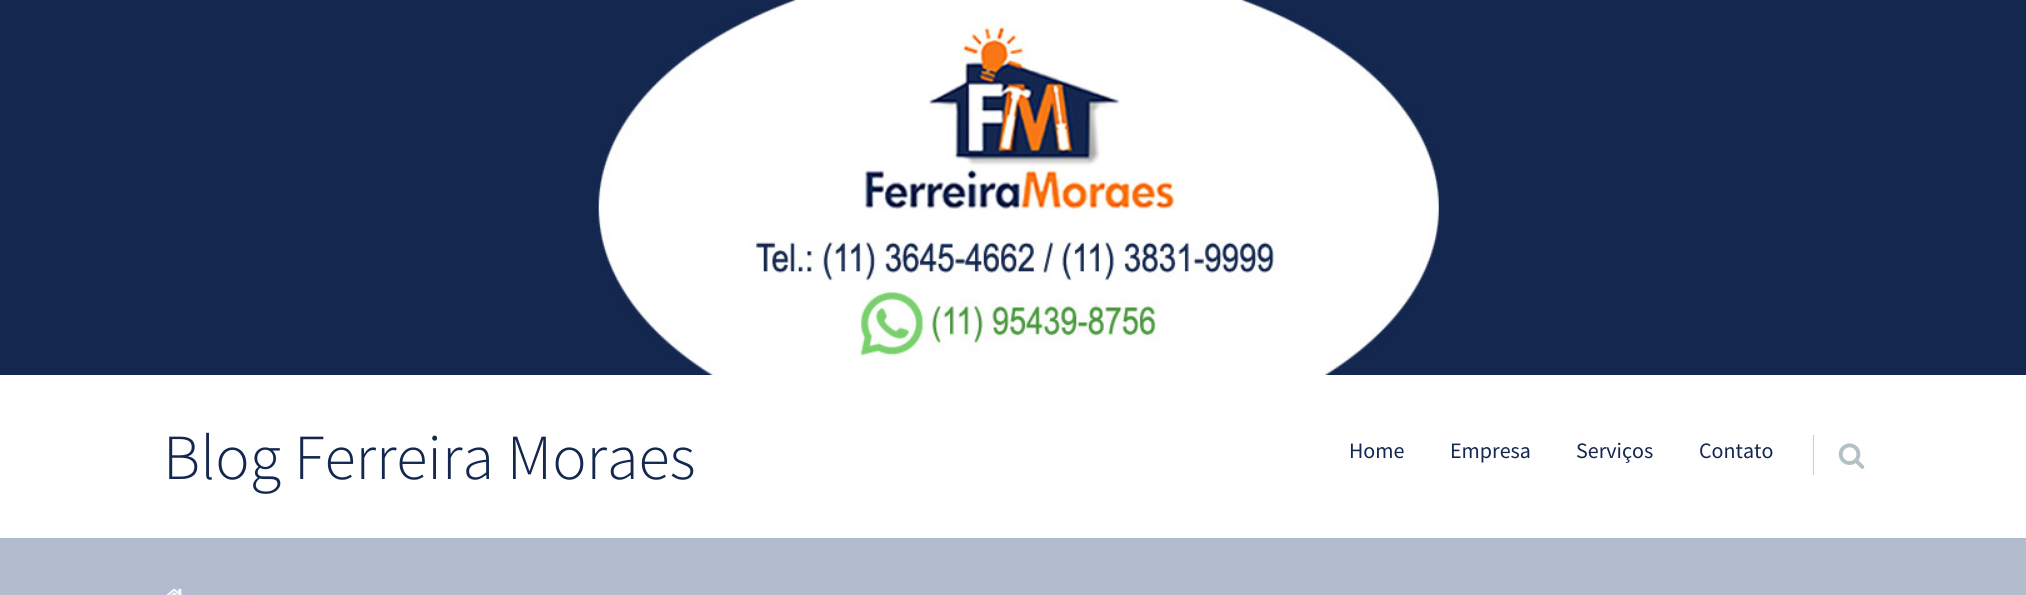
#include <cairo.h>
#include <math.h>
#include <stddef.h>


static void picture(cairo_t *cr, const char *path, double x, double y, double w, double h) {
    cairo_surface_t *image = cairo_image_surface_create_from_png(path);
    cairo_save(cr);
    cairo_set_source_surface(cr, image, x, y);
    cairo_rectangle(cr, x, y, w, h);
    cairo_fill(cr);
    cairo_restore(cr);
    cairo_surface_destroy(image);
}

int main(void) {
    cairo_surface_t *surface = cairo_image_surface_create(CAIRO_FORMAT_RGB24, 2026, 595);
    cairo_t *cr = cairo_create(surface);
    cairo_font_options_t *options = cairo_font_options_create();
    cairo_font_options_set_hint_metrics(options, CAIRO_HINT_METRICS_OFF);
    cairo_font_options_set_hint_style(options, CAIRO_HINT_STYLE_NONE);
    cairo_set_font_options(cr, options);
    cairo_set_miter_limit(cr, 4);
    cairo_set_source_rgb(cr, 0.702, 0.737, 0.812);
    cairo_paint(cr);
    cairo_set_source_rgb(cr, 0.078, 0.153, 0.31);
    cairo_rectangle(cr, 0, 0, 2026, 375);
    cairo_fill(cr);
    picture(cr, "img1.png", 594, 0, 846, 375);
    cairo_set_source_rgb(cr, 1, 1, 1);
    cairo_rectangle(cr, 0, 375, 2026, 163);
    cairo_fill(cr);
    cairo_select_font_face(cr, "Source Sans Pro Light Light", CAIRO_FONT_SLANT_NORMAL, CAIRO_FONT_WEIGHT_NORMAL);
    cairo_set_font_size(cr, 64.25);
    cairo_set_source_rgb(cr, 0.078, 0.153, 0.31);
    cairo_move_to(cr, 163, 479);
    cairo_show_text(cr, "Blog Ferreira Moraes");
    cairo_select_font_face(cr, "Source Sans Pro", CAIRO_FONT_SLANT_NORMAL, CAIRO_FONT_WEIGHT_NORMAL);
    cairo_set_font_size(cr, 22);
    cairo_move_to(cr, 1349, 458);
    cairo_show_text(cr, "Home");
    cairo_move_to(cr, 1450, 458);
    cairo_show_text(cr, "Empresa");
    cairo_move_to(cr, 1576, 458);
    cairo_show_text(cr, "Serviços");
    cairo_move_to(cr, 1699, 458);
    cairo_show_text(cr, "Contato");
    cairo_set_source_rgb(cr, 0.8, 0.8, 0.8);
    cairo_rectangle(cr, 1813, 435, 1, 40);
    cairo_fill(cr);
    picture(cr, "img2.png", 1838, 443, 27, 26);
    picture(cr, "img3.png", 166, 588, 16, 7);
    cairo_set_source_rgb(cr, 0.729, 0.761, 0.827);
    cairo_rectangle(cr, 244, 594, 1, 1);
    cairo_fill(cr);
    cairo_surface_write_to_png(surface, "page.png");
    cairo_font_options_destroy(options);
    cairo_destroy(cr);
    cairo_surface_destroy(surface);
    return 0;
}
